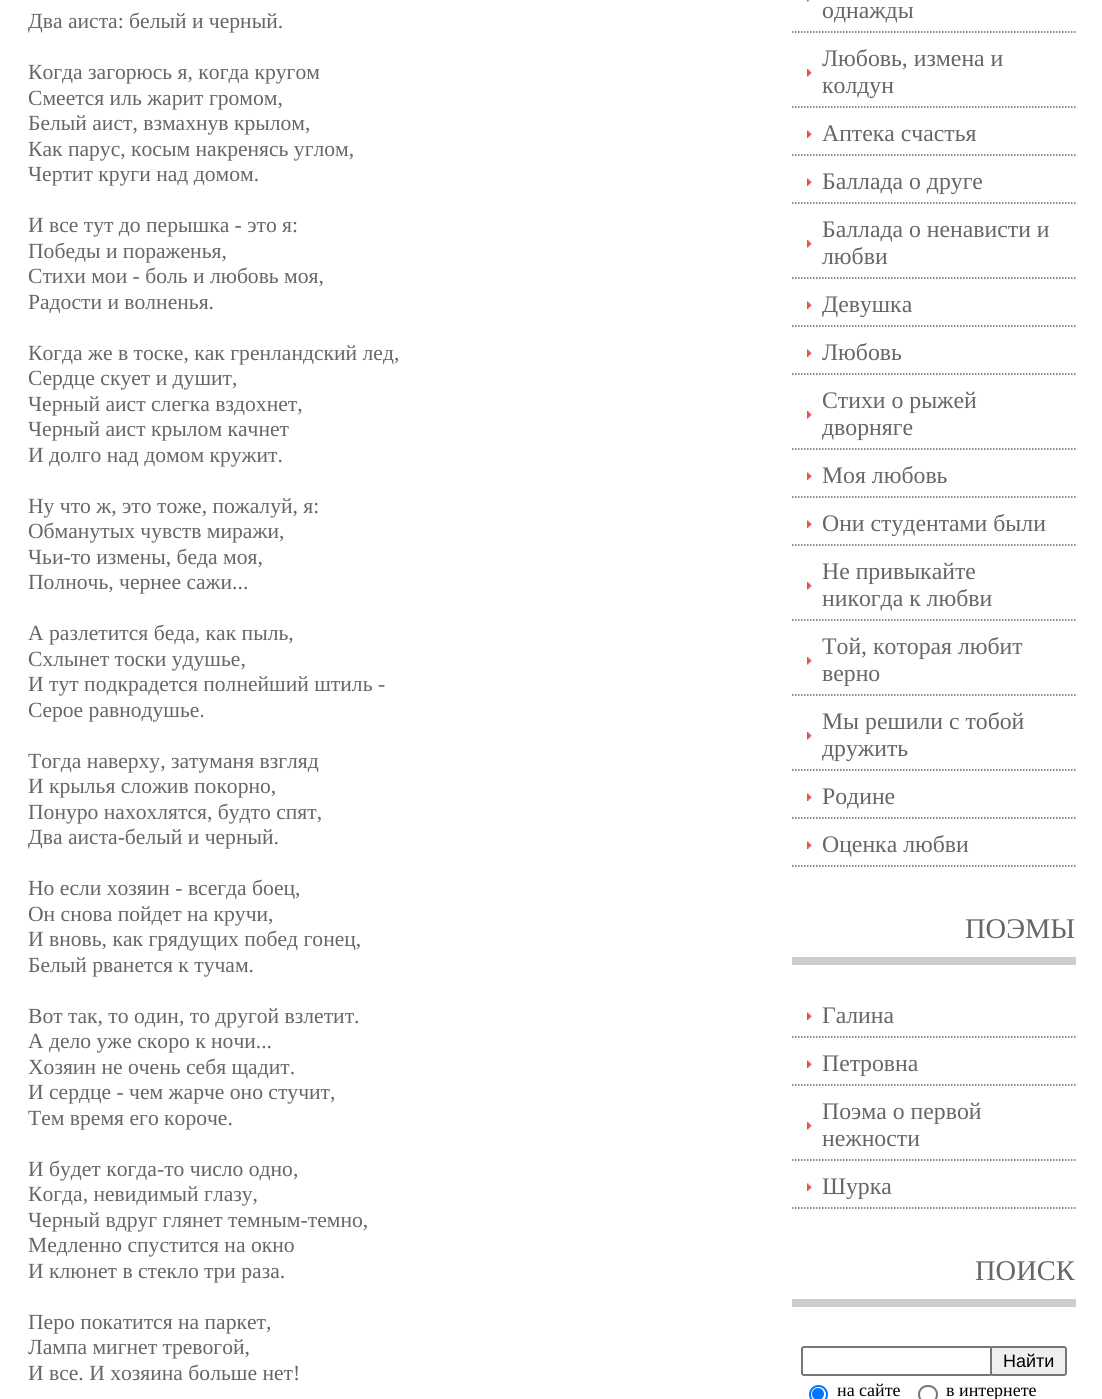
#include <cairo.h>
#include <math.h>
#include <stddef.h>


static void round_rect(cairo_t *cr, double x, double y, double w, double h, double r) {
    cairo_new_sub_path(cr);
    cairo_arc(cr, x + w - r, y + h - r, r, 0, M_PI / 2);
    cairo_arc(cr, x + r, y + h - r, r, M_PI / 2, M_PI);
    cairo_arc(cr, x + r, y + r, r, M_PI, 1.5 * M_PI);
    cairo_arc(cr, x + w - r, y + r, r, 1.5 * M_PI, 2 * M_PI);
    cairo_close_path(cr);
}

static void picture(cairo_t *cr, const char *path, double x, double y, double w, double h) {
    cairo_surface_t *image = cairo_image_surface_create_from_png(path);
    cairo_save(cr);
    cairo_set_source_surface(cr, image, x, y);
    cairo_rectangle(cr, x, y, w, h);
    cairo_fill(cr);
    cairo_restore(cr);
    cairo_surface_destroy(image);
}

int main(void) {
    cairo_surface_t *surface = cairo_image_surface_create(CAIRO_FORMAT_RGB24, 1102, 1399);
    cairo_t *cr = cairo_create(surface);
    cairo_font_options_t *options = cairo_font_options_create();
    cairo_font_options_set_hint_metrics(options, CAIRO_HINT_METRICS_OFF);
    cairo_font_options_set_hint_style(options, CAIRO_HINT_STYLE_NONE);
    cairo_set_font_options(cr, options);
    cairo_set_miter_limit(cr, 4);
    cairo_set_source_rgb(cr, 1, 1, 1);
    cairo_paint(cr);
    cairo_select_font_face(cr, "Liberation Serif", CAIRO_FONT_SLANT_NORMAL, CAIRO_FONT_WEIGHT_NORMAL);
    cairo_set_font_size(cr, 21.6);
    cairo_set_source_rgb(cr, 0.4, 0.4, 0.4);
    cairo_move_to(cr, 28, 28);
    cairo_show_text(cr, "Два аиста: белый и черный.");
    cairo_move_to(cr, 28, 79);
    cairo_show_text(cr, "Когда загорюсь я, когда кругом");
    cairo_move_to(cr, 28, 105);
    cairo_show_text(cr, "Смеется иль жарит громом,");
    cairo_move_to(cr, 28, 130);
    cairo_show_text(cr, "Белый аист, взмахнув крылом,");
    cairo_move_to(cr, 28, 156);
    cairo_show_text(cr, "Как парус, косым накренясь углом,");
    cairo_move_to(cr, 28, 181);
    cairo_show_text(cr, "Чертит круги над домом.");
    cairo_move_to(cr, 28, 232);
    cairo_show_text(cr, "И все тут до перышка - это я:");
    cairo_move_to(cr, 28, 258);
    cairo_show_text(cr, "Победы и пораженья,");
    cairo_move_to(cr, 28, 283);
    cairo_show_text(cr, "Стихи мои - боль и любовь моя,");
    cairo_move_to(cr, 28, 309);
    cairo_show_text(cr, "Радости и волненья.");
    cairo_move_to(cr, 28, 360);
    cairo_show_text(cr, "Когда же в тоске, как гренландский лед,");
    cairo_move_to(cr, 28, 385);
    cairo_show_text(cr, "Сердце скует и душит,");
    cairo_move_to(cr, 28, 411);
    cairo_show_text(cr, "Черный аист слегка вздохнет,");
    cairo_move_to(cr, 28, 436);
    cairo_show_text(cr, "Черный аист крылом качнет");
    cairo_move_to(cr, 28, 462);
    cairo_show_text(cr, "И долго над домом кружит.");
    cairo_move_to(cr, 28, 513);
    cairo_show_text(cr, "Ну что ж, это тоже, пожалуй, я:");
    cairo_move_to(cr, 28, 538);
    cairo_show_text(cr, "Обманутых чувств миражи,");
    cairo_move_to(cr, 28, 564);
    cairo_show_text(cr, "Чьи-то измены, беда моя,");
    cairo_move_to(cr, 28, 589);
    cairo_show_text(cr, "Полночь, чернее сажи...");
    cairo_move_to(cr, 28, 640);
    cairo_show_text(cr, "А разлетится беда, как пыль,");
    cairo_move_to(cr, 28, 666);
    cairo_show_text(cr, "Схлынет тоски удушье,");
    cairo_move_to(cr, 28, 691);
    cairo_show_text(cr, "И тут подкрадется полнейший штиль -");
    cairo_move_to(cr, 28, 717);
    cairo_show_text(cr, "Серое равнодушье.");
    cairo_move_to(cr, 28, 768);
    cairo_show_text(cr, "Тогда наверху, затуманя взгляд");
    cairo_move_to(cr, 28, 793);
    cairo_show_text(cr, "И крылья сложив покорно,");
    cairo_move_to(cr, 28, 819);
    cairo_show_text(cr, "Понуро нахохлятся, будто спят,");
    cairo_move_to(cr, 28, 844);
    cairo_show_text(cr, "Два аиста-белый и черный.");
    cairo_move_to(cr, 28, 895);
    cairo_show_text(cr, "Но если хозяин - всегда боец,");
    cairo_move_to(cr, 28, 921);
    cairo_show_text(cr, "Он снова пойдет на кручи,");
    cairo_move_to(cr, 28, 946);
    cairo_show_text(cr, "И вновь, как грядущих побед гонец,");
    cairo_move_to(cr, 28, 972);
    cairo_show_text(cr, "Белый рванется к тучам.");
    cairo_move_to(cr, 28, 1023);
    cairo_show_text(cr, "Вот так, то один, то другой взлетит.");
    cairo_move_to(cr, 28, 1048);
    cairo_show_text(cr, "А дело уже скоро к ночи...");
    cairo_move_to(cr, 28, 1074);
    cairo_show_text(cr, "Хозяин не очень себя щадит.");
    cairo_move_to(cr, 28, 1099);
    cairo_show_text(cr, "И сердце - чем жарче оно стучит,");
    cairo_move_to(cr, 28, 1125);
    cairo_show_text(cr, "Тем время его короче.");
    cairo_move_to(cr, 28, 1176);
    cairo_show_text(cr, "И будет когда-то число одно,");
    cairo_move_to(cr, 28, 1201);
    cairo_show_text(cr, "Когда, невидимый глазу,");
    cairo_move_to(cr, 28, 1227);
    cairo_show_text(cr, "Черный вдруг глянет темным-темно,");
    cairo_move_to(cr, 28, 1252);
    cairo_show_text(cr, "Медленно спустится на окно");
    cairo_move_to(cr, 28, 1278);
    cairo_show_text(cr, "И клюнет в стекло три раза.");
    cairo_move_to(cr, 28, 1329);
    cairo_show_text(cr, "Перо покатится на паркет,");
    cairo_move_to(cr, 28, 1354);
    cairo_show_text(cr, "Лампа мигнет тревогой,");
    cairo_move_to(cr, 28, 1380);
    cairo_show_text(cr, "И все. И хозяина больше нет!");
    picture(cr, "img1.png", 807, 0, 4, 2);
    cairo_new_path(cr);
    cairo_move_to(cr, 792, 32);
    cairo_line_to(cr, 1075.5, 32);
    cairo_set_line_width(cr, 1.5);
    cairo_set_dash(cr, (double[]){1.5, 1.5}, 2, 0);
    cairo_stroke(cr);
    cairo_set_font_size(cr, 23.75);
    cairo_move_to(cr, 822, 18);
    cairo_show_text(cr, "однажды");
    picture(cr, "img2.png", 807, 69, 5, 8);
    cairo_new_path(cr);
    cairo_move_to(cr, 792, 107);
    cairo_line_to(cr, 1075.5, 107);
    cairo_stroke(cr);
    cairo_move_to(cr, 822, 66);
    cairo_show_text(cr, "Любовь, измена и");
    cairo_move_to(cr, 822, 93);
    cairo_show_text(cr, "колдун");
    picture(cr, "img3.png", 807, 130, 5, 8);
    cairo_new_path(cr);
    cairo_move_to(cr, 792, 155);
    cairo_line_to(cr, 1075.5, 155);
    cairo_stroke(cr);
    cairo_move_to(cr, 822, 141);
    cairo_show_text(cr, "Аптека счастья");
    picture(cr, "img3.png", 807, 178, 5, 8);
    cairo_new_path(cr);
    cairo_move_to(cr, 792, 203);
    cairo_line_to(cr, 1075.5, 203);
    cairo_stroke(cr);
    cairo_move_to(cr, 822, 189);
    cairo_show_text(cr, "Баллада о друге");
    picture(cr, "img2.png", 807, 240, 5, 8);
    cairo_new_path(cr);
    cairo_move_to(cr, 792, 278);
    cairo_line_to(cr, 1075.5, 278);
    cairo_stroke(cr);
    cairo_move_to(cr, 822, 237);
    cairo_show_text(cr, "Баллада о ненависти и");
    cairo_move_to(cr, 822, 264);
    cairo_show_text(cr, "любви");
    picture(cr, "img3.png", 807, 301, 5, 8);
    cairo_new_path(cr);
    cairo_move_to(cr, 792, 326);
    cairo_line_to(cr, 1075.5, 326);
    cairo_stroke(cr);
    cairo_move_to(cr, 822, 312);
    cairo_show_text(cr, "Девушка");
    picture(cr, "img3.png", 807, 349, 5, 8);
    cairo_new_path(cr);
    cairo_move_to(cr, 792, 374);
    cairo_line_to(cr, 1075.5, 374);
    cairo_stroke(cr);
    cairo_move_to(cr, 822, 360);
    cairo_show_text(cr, "Любовь");
    picture(cr, "img2.png", 807, 411, 5, 8);
    cairo_new_path(cr);
    cairo_move_to(cr, 792, 449);
    cairo_line_to(cr, 1075.5, 449);
    cairo_stroke(cr);
    cairo_move_to(cr, 822, 408);
    cairo_show_text(cr, "Стихи о рыжей");
    cairo_move_to(cr, 822, 435);
    cairo_show_text(cr, "дворняге");
    picture(cr, "img3.png", 807, 472, 5, 8);
    cairo_new_path(cr);
    cairo_move_to(cr, 792, 497);
    cairo_line_to(cr, 1075.5, 497);
    cairo_stroke(cr);
    cairo_move_to(cr, 822, 483);
    cairo_show_text(cr, "Моя любовь");
    picture(cr, "img3.png", 807, 520, 5, 8);
    cairo_new_path(cr);
    cairo_move_to(cr, 792, 545);
    cairo_line_to(cr, 1075.5, 545);
    cairo_stroke(cr);
    cairo_move_to(cr, 822, 531);
    cairo_show_text(cr, "Они студентами были");
    picture(cr, "img2.png", 807, 582, 5, 8);
    cairo_new_path(cr);
    cairo_move_to(cr, 792, 620);
    cairo_line_to(cr, 1075.5, 620);
    cairo_stroke(cr);
    cairo_move_to(cr, 822, 579);
    cairo_show_text(cr, "Не привыкайте");
    cairo_move_to(cr, 822, 606);
    cairo_show_text(cr, "никогда к любви");
    picture(cr, "img2.png", 807, 657, 5, 8);
    cairo_new_path(cr);
    cairo_move_to(cr, 792, 695);
    cairo_line_to(cr, 1075.5, 695);
    cairo_stroke(cr);
    cairo_move_to(cr, 822, 654);
    cairo_show_text(cr, "Той, которая любит");
    cairo_move_to(cr, 822, 681);
    cairo_show_text(cr, "верно");
    picture(cr, "img2.png", 807, 732, 5, 8);
    cairo_new_path(cr);
    cairo_move_to(cr, 792, 770);
    cairo_line_to(cr, 1075.5, 770);
    cairo_stroke(cr);
    cairo_move_to(cr, 822, 729);
    cairo_show_text(cr, "Мы решили с тобой");
    cairo_move_to(cr, 822, 756);
    cairo_show_text(cr, "дружить");
    picture(cr, "img3.png", 807, 793, 5, 8);
    cairo_new_path(cr);
    cairo_move_to(cr, 792, 818);
    cairo_line_to(cr, 1075.5, 818);
    cairo_stroke(cr);
    cairo_move_to(cr, 822, 804);
    cairo_show_text(cr, "Родине");
    picture(cr, "img3.png", 807, 841, 5, 8);
    cairo_new_path(cr);
    cairo_move_to(cr, 792, 866);
    cairo_line_to(cr, 1075.5, 866);
    cairo_stroke(cr);
    cairo_move_to(cr, 822, 852);
    cairo_show_text(cr, "Оценка любви");
    cairo_set_source_rgb(cr, 0.8, 0.8, 0.8);
    cairo_rectangle(cr, 792, 957, 284, 8);
    cairo_fill(cr);
    cairo_set_font_size(cr, 28.5);
    cairo_set_source_rgb(cr, 0.4, 0.4, 0.4);
    cairo_move_to(cr, 965, 938);
    cairo_show_text(cr, "ПОЭМЫ");
    picture(cr, "img3.png", 807, 1012, 5, 8);
    cairo_new_path(cr);
    cairo_move_to(cr, 792, 1037);
    cairo_line_to(cr, 1075.5, 1037);
    cairo_stroke(cr);
    cairo_set_font_size(cr, 23.75);
    cairo_move_to(cr, 822, 1023);
    cairo_show_text(cr, "Галина");
    picture(cr, "img3.png", 807, 1060, 5, 8);
    cairo_new_path(cr);
    cairo_move_to(cr, 792, 1085);
    cairo_line_to(cr, 1075.5, 1085);
    cairo_stroke(cr);
    cairo_move_to(cr, 822, 1071);
    cairo_show_text(cr, "Петровна");
    picture(cr, "img2.png", 807, 1122, 5, 8);
    cairo_new_path(cr);
    cairo_move_to(cr, 792, 1160);
    cairo_line_to(cr, 1075.5, 1160);
    cairo_stroke(cr);
    cairo_move_to(cr, 822, 1119);
    cairo_show_text(cr, "Поэма о первой");
    cairo_move_to(cr, 822, 1146);
    cairo_show_text(cr, "нежности");
    picture(cr, "img3.png", 807, 1183, 5, 8);
    cairo_new_path(cr);
    cairo_move_to(cr, 792, 1208);
    cairo_line_to(cr, 1075.5, 1208);
    cairo_stroke(cr);
    cairo_move_to(cr, 822, 1194);
    cairo_show_text(cr, "Шурка");
    cairo_set_source_rgb(cr, 0.8, 0.8, 0.8);
    cairo_rectangle(cr, 792, 1299, 284, 8);
    cairo_fill(cr);
    cairo_set_font_size(cr, 28.5);
    cairo_set_source_rgb(cr, 0.4, 0.4, 0.4);
    cairo_move_to(cr, 975, 1280);
    cairo_show_text(cr, "ПОИСК");
    round_rect(cr, 802, 1347, 190, 28, 2);
    cairo_set_source_rgb(cr, 0.463, 0.463, 0.463);
    cairo_set_line_width(cr, 2);
    cairo_set_dash(cr, NULL, 0, 0);
    cairo_stroke(cr);
    cairo_set_source_rgb(cr, 0.937, 0.937, 0.937);
    round_rect(cr, 991, 1347, 75, 28, 2);
    cairo_fill_preserve(cr);
    cairo_set_source_rgb(cr, 0.463, 0.463, 0.463);
    cairo_stroke(cr);
    cairo_select_font_face(cr, "Liberation Sans", CAIRO_FONT_SLANT_NORMAL, CAIRO_FONT_WEIGHT_NORMAL);
    cairo_set_font_size(cr, 18);
    cairo_set_source_rgb(cr, 0, 0, 0);
    cairo_move_to(cr, 1003, 1367);
    cairo_show_text(cr, "Найти");
    cairo_new_path(cr);
    cairo_arc(cr, 818.5, 1394.5, 8.5, 0, 2 * M_PI);
    cairo_set_source_rgb(cr, 0, 0.459, 1);
    cairo_stroke(cr);
    cairo_arc(cr, 818, 1394, 6, 0, 2 * M_PI);
    cairo_fill(cr);
    cairo_select_font_face(cr, "Liberation Serif", CAIRO_FONT_SLANT_NORMAL, CAIRO_FONT_WEIGHT_NORMAL);
    cairo_set_source_rgb(cr, 0, 0, 0);
    cairo_move_to(cr, 837, 1396);
    cairo_show_text(cr, "на сайте");
    round_rect(cr, 919, 1386, 18, 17, 8.5);
    cairo_set_source_rgb(cr, 0.463, 0.463, 0.463);
    cairo_stroke(cr);
    cairo_set_source_rgb(cr, 0, 0, 0);
    cairo_move_to(cr, 946, 1396);
    cairo_show_text(cr, "в интернете");
    cairo_surface_write_to_png(surface, "page.png");
    cairo_font_options_destroy(options);
    cairo_destroy(cr);
    cairo_surface_destroy(surface);
    return 0;
}
